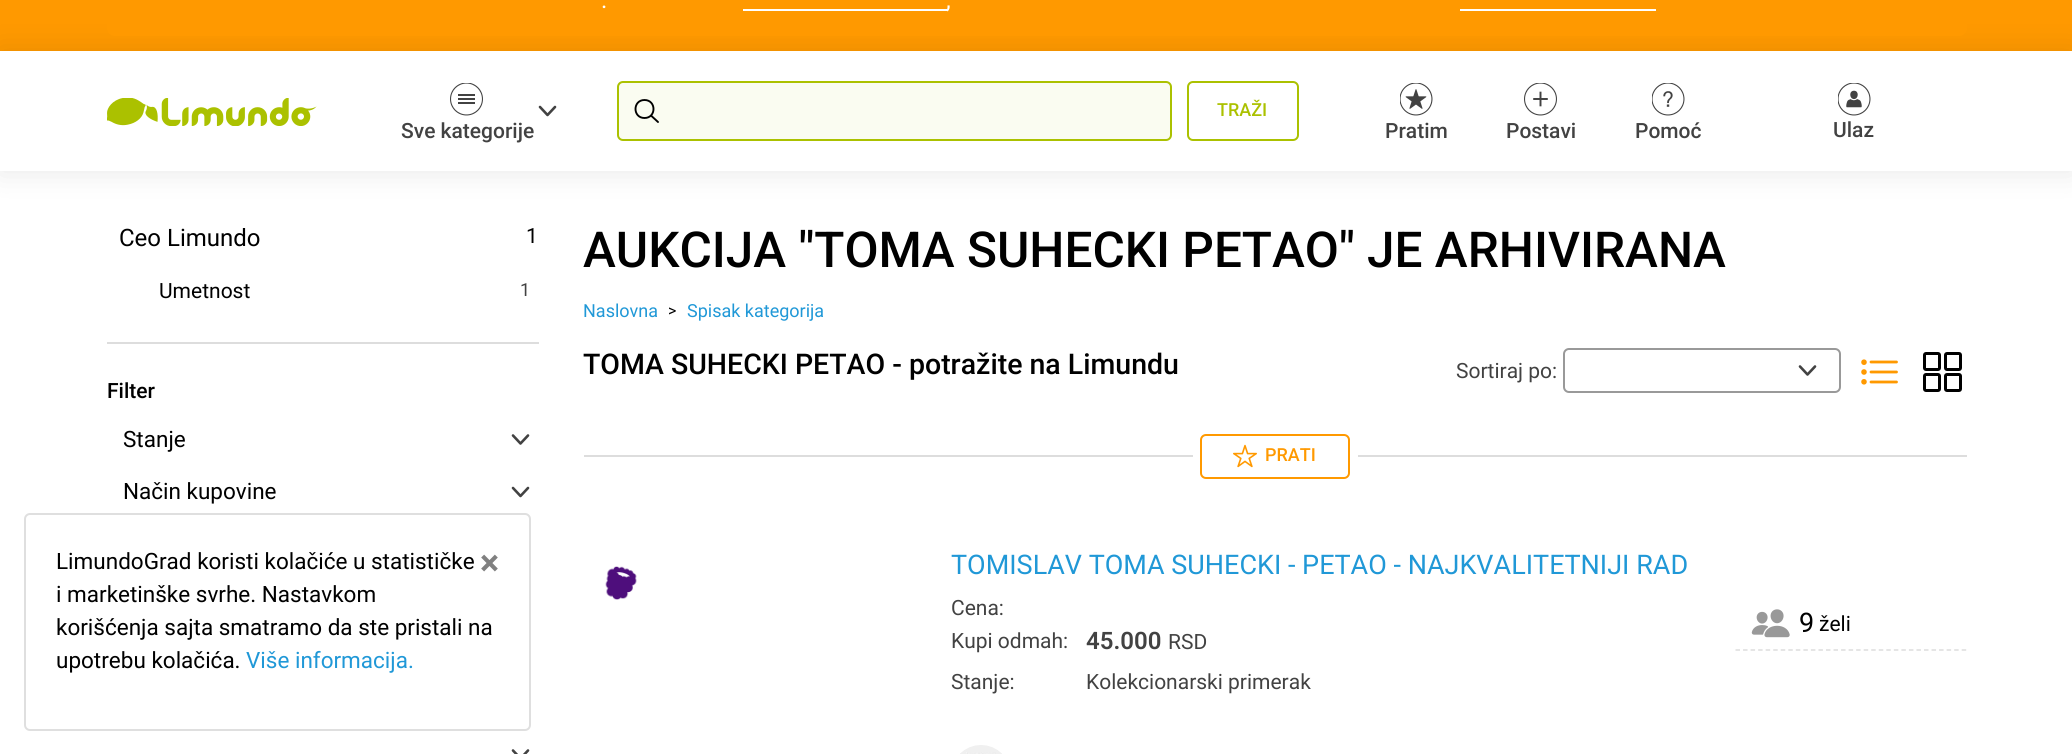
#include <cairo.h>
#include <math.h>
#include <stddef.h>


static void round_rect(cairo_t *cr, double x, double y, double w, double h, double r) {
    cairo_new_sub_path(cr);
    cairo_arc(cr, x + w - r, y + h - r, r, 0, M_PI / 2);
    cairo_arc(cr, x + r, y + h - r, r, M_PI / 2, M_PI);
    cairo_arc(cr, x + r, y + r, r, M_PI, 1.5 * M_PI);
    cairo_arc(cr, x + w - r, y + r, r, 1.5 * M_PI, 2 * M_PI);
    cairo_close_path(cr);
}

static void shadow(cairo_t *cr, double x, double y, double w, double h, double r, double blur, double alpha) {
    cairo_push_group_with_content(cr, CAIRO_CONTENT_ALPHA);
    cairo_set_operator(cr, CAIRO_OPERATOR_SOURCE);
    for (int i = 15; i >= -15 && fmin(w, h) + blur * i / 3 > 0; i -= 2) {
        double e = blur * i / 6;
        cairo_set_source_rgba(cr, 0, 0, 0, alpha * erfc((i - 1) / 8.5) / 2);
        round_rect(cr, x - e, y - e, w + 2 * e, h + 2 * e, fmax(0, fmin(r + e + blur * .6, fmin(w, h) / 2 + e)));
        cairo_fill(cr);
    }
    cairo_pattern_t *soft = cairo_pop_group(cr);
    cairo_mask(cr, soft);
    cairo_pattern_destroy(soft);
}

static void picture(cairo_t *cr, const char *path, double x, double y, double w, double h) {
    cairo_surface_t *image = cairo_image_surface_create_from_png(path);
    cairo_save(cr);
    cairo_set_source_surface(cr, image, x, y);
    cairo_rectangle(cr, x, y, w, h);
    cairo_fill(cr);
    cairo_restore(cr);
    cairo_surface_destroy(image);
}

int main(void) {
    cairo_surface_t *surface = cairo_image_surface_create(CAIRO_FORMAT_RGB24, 2072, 754);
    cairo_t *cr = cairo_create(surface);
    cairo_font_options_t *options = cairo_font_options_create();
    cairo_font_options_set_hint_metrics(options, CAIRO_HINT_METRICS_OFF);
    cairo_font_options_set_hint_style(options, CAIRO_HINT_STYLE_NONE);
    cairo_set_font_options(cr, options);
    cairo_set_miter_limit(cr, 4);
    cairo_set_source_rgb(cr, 1, 1, 1);
    cairo_paint(cr);
    cairo_set_source_rgb(cr, 1, 0.6, 0);
    cairo_rectangle(cr, 0, 0, 2072, 51);
    cairo_fill(cr);
    cairo_save(cr);
    cairo_set_fill_rule(cr, CAIRO_FILL_RULE_EVEN_ODD);
    cairo_new_path(cr);
    cairo_move_to(cr, 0, 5);
    cairo_line_to(cr, 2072, 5);
    cairo_line_to(cr, 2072, 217);
    cairo_line_to(cr, 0, 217);
    cairo_close_path(cr);
    cairo_move_to(cr, 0, 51);
    cairo_line_to(cr, 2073, 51);
    cairo_line_to(cr, 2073, 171);
    cairo_line_to(cr, 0, 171);
    cairo_close_path(cr);
    cairo_clip(cr);
    cairo_set_source_rgb(cr, 0, 0, 0);
    shadow(cr, 0, 51, 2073, 120, 0, 15, 0.1);
    cairo_restore(cr);
    round_rect(cr, 107, -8, 1860, 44, 8);
    cairo_fill(cr);
    cairo_select_font_face(cr, "Roboto", CAIRO_FONT_SLANT_NORMAL, CAIRO_FONT_WEIGHT_NORMAL);
    cairo_set_font_size(cr, 24);
    cairo_set_source_rgb(cr, 1, 1, 1);
    cairo_move_to(cr, 601, 8);
    cairo_show_text(cr, ".");
    cairo_rectangle(cr, 743, 9, 204, 2);
    cairo_fill(cr);
    cairo_move_to(cr, 946, 8);
    cairo_show_text(cr, ",");
    cairo_rectangle(cr, 1460, 9, 196, 2);
    cairo_fill(cr);
    picture(cr, "img1.png", 107, 98, 210, 28);
    cairo_set_source_rgb(cr, 0.98, 0.988, 0.945);
    round_rect(cr, 618, 82, 553, 58, 5);
    cairo_fill_preserve(cr);
    cairo_set_source_rgb(cr, 0.671, 0.757, 0);
    cairo_stroke(cr);
    cairo_new_path(cr);
    cairo_move_to(cr, 644.5, 100);
    cairo_curve_to(cr, 632.5, 100, 632.5, 118, 644.5, 118);
    cairo_curve_to(cr, 656.5, 118, 656.5, 100, 644.5, 100);
    cairo_close_path(cr);
    cairo_set_source_rgb(cr, 0, 0, 0);
    cairo_set_line_width(cr, 1.9);
    cairo_stroke(cr);
    cairo_new_path(cr);
    cairo_move_to(cr, 651.5, 116);
    cairo_line_to(cr, 658, 122);
    cairo_set_line_cap(cr, CAIRO_LINE_CAP_ROUND);
    cairo_stroke(cr);
    round_rect(cr, 1188, 82, 110, 58, 5);
    cairo_set_source_rgb(cr, 0.671, 0.757, 0);
    cairo_set_line_width(cr, 2);
    cairo_set_line_cap(cr, CAIRO_LINE_CAP_BUTT);
    cairo_stroke(cr);
    cairo_select_font_face(cr, "Roboto Medium", CAIRO_FONT_SLANT_NORMAL, CAIRO_FONT_WEIGHT_NORMAL);
    cairo_set_font_size(cr, 18);
    cairo_move_to(cr, 1217, 116);
    cairo_show_text(cr, "TRAŽI");
    picture(cr, "img2.png", 450, 83, 33, 33);
    cairo_new_path(cr);
    cairo_move_to(cr, 540, 107);
    cairo_line_to(cr, 547.5, 115);
    cairo_line_to(cr, 555, 107);
    cairo_set_source_rgb(cr, 0.259, 0.259, 0.259);
    cairo_set_line_width(cr, 2.6);
    cairo_set_line_cap(cr, CAIRO_LINE_CAP_ROUND);
    cairo_set_line_join(cr, CAIRO_LINE_JOIN_ROUND);
    cairo_stroke(cr);
    cairo_set_font_size(cr, 21);
    cairo_move_to(cr, 401, 138);
    cairo_show_text(cr, "Sve kategorije");
    picture(cr, "img3.png", 1400, 83, 33, 33);
    cairo_move_to(cr, 1385, 138);
    cairo_show_text(cr, "Pratim");
    picture(cr, "img4.png", 1524, 83, 33, 33);
    cairo_move_to(cr, 1506, 138);
    cairo_show_text(cr, "Postavi");
    picture(cr, "img5.png", 1652, 83, 33, 33);
    cairo_move_to(cr, 1635, 138);
    cairo_show_text(cr, "Pomoć");
    picture(cr, "img6.png", 1838, 83, 33, 33);
    cairo_move_to(cr, 1833, 137);
    cairo_show_text(cr, "Ulaz");
    cairo_set_source_rgb(cr, 0.867, 0.867, 0.867);
    cairo_rectangle(cr, 107, 342, 432, 2);
    cairo_fill(cr);
    cairo_select_font_face(cr, "Roboto", CAIRO_FONT_SLANT_NORMAL, CAIRO_FONT_WEIGHT_NORMAL);
    cairo_set_font_size(cr, 24);
    cairo_set_source_rgb(cr, 0, 0, 0);
    cairo_move_to(cr, 119, 246);
    cairo_show_text(cr, "Ceo Limundo");
    cairo_set_font_size(cr, 21);
    cairo_move_to(cr, 526, 243);
    cairo_show_text(cr, "1");
    cairo_move_to(cr, 159, 298);
    cairo_show_text(cr, "Umetnost");
    cairo_set_font_size(cr, 18);
    cairo_set_source_rgb(cr, 0.259, 0.259, 0.259);
    cairo_move_to(cr, 520, 296);
    cairo_show_text(cr, "1");
    cairo_select_font_face(cr, "Roboto Medium", CAIRO_FONT_SLANT_NORMAL, CAIRO_FONT_WEIGHT_NORMAL);
    cairo_set_font_size(cr, 21);
    cairo_set_source_rgb(cr, 0, 0, 0);
    cairo_move_to(cr, 107, 398);
    cairo_show_text(cr, "Filter");
    cairo_select_font_face(cr, "Roboto", CAIRO_FONT_SLANT_NORMAL, CAIRO_FONT_WEIGHT_NORMAL);
    cairo_set_font_size(cr, 22.5);
    cairo_move_to(cr, 123, 447);
    cairo_show_text(cr, "Stanje");
    cairo_new_path(cr);
    cairo_move_to(cr, 513, 435.5);
    cairo_line_to(cr, 520.5, 443.5);
    cairo_line_to(cr, 528, 435.5);
    cairo_set_source_rgb(cr, 0.259, 0.259, 0.259);
    cairo_stroke(cr);
    cairo_set_source_rgb(cr, 0, 0, 0);
    cairo_move_to(cr, 123, 499);
    cairo_show_text(cr, "Način kupovine");
    cairo_new_path(cr);
    cairo_move_to(cr, 513, 488);
    cairo_line_to(cr, 520.5, 496);
    cairo_line_to(cr, 528, 488);
    cairo_set_source_rgb(cr, 0.259, 0.259, 0.259);
    cairo_stroke(cr);
    cairo_new_path(cr);
    cairo_move_to(cr, 513, 750.5);
    cairo_line_to(cr, 520.5, 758.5);
    cairo_line_to(cr, 528, 750.5);
    cairo_stroke(cr);
    cairo_select_font_face(cr, "Roboto Medium", CAIRO_FONT_SLANT_NORMAL, CAIRO_FONT_WEIGHT_NORMAL);
    cairo_set_font_size(cr, 49.5);
    cairo_set_source_rgb(cr, 0, 0, 0);
    cairo_move_to(cr, 583, 267);
    cairo_show_text(cr, "AUKCIJA \"TOMA SUHECKI PETAO\" JE ARHIVIRANA");
    cairo_select_font_face(cr, "Roboto", CAIRO_FONT_SLANT_NORMAL, CAIRO_FONT_WEIGHT_NORMAL);
    cairo_set_font_size(cr, 18);
    cairo_set_source_rgb(cr, 0.125, 0.596, 0.843);
    cairo_move_to(cr, 583, 317);
    cairo_show_text(cr, "Naslovna");
    cairo_set_font_size(cr, 16);
    cairo_set_source_rgb(cr, 0, 0, 0);
    cairo_move_to(cr, 668, 316);
    cairo_show_text(cr, ">");
    cairo_set_font_size(cr, 18);
    cairo_set_source_rgb(cr, 0.125, 0.596, 0.843);
    cairo_move_to(cr, 687, 317);
    cairo_show_text(cr, "Spisak kategorija");
    cairo_select_font_face(cr, "Roboto Medium", CAIRO_FONT_SLANT_NORMAL, CAIRO_FONT_WEIGHT_NORMAL);
    cairo_set_font_size(cr, 28.5);
    cairo_set_source_rgb(cr, 0, 0, 0);
    cairo_move_to(cr, 583, 374);
    cairo_show_text(cr, "TOMA SUHECKI PETAO - potražite na Limundu");
    cairo_select_font_face(cr, "Roboto", CAIRO_FONT_SLANT_NORMAL, CAIRO_FONT_WEIGHT_NORMAL);
    cairo_set_font_size(cr, 21);
    cairo_set_source_rgb(cr, 0.259, 0.259, 0.259);
    cairo_move_to(cr, 1456, 378);
    cairo_show_text(cr, "Sortiraj po:");
    round_rect(cr, 1564, 349, 276, 43, 5);
    cairo_set_source_rgb(cr, 0.6, 0.6, 0.6);
    cairo_set_line_width(cr, 2);
    cairo_set_line_cap(cr, CAIRO_LINE_CAP_BUTT);
    cairo_set_line_join(cr, CAIRO_LINE_JOIN_MITER);
    cairo_stroke(cr);
    cairo_new_path(cr);
    cairo_move_to(cr, 1800, 366.5);
    cairo_line_to(cr, 1807.5, 374.5);
    cairo_line_to(cr, 1815, 366.5);
    cairo_set_source_rgb(cr, 0.259, 0.259, 0.259);
    cairo_set_line_width(cr, 2.6);
    cairo_set_line_cap(cr, CAIRO_LINE_CAP_ROUND);
    cairo_set_line_join(cr, CAIRO_LINE_JOIN_ROUND);
    cairo_stroke(cr);
    cairo_arc(cr, 1864, 362.2, 1.4, 0, 2 * M_PI);
    cairo_set_source_rgb(cr, 1, 0.6, 0);
    cairo_set_line_width(cr, 2.8);
    cairo_set_line_cap(cr, CAIRO_LINE_CAP_BUTT);
    cairo_set_line_join(cr, CAIRO_LINE_JOIN_MITER);
    cairo_stroke(cr);
    cairo_new_path(cr);
    cairo_move_to(cr, 1871, 362);
    cairo_line_to(cr, 1896.5, 362);
    cairo_move_to(cr, 1871, 372);
    cairo_line_to(cr, 1896.5, 372);
    cairo_move_to(cr, 1871, 382);
    cairo_line_to(cr, 1896.5, 382);
    cairo_set_line_cap(cr, CAIRO_LINE_CAP_ROUND);
    cairo_set_line_join(cr, CAIRO_LINE_JOIN_ROUND);
    cairo_stroke(cr);
    cairo_arc(cr, 1864, 372, 1.4, 0, 2 * M_PI);
    cairo_set_line_cap(cr, CAIRO_LINE_CAP_BUTT);
    cairo_set_line_join(cr, CAIRO_LINE_JOIN_MITER);
    cairo_stroke(cr);
    cairo_arc(cr, 1864, 381.8, 1.4, 0, 2 * M_PI);
    cairo_stroke(cr);
    round_rect(cr, 1924.5, 353.5, 15, 16, 1.5);
    cairo_set_source_rgb(cr, 0, 0, 0);
    cairo_set_line_width(cr, 3);
    cairo_stroke(cr);
    round_rect(cr, 1945.5, 353.5, 15, 16, 1.5);
    cairo_stroke(cr);
    round_rect(cr, 1924.5, 374.5, 15, 16, 1.5);
    cairo_stroke(cr);
    round_rect(cr, 1945.5, 374.5, 15, 16, 1.5);
    cairo_stroke(cr);
    cairo_set_source_rgb(cr, 0.867, 0.867, 0.867);
    cairo_rectangle(cr, 584, 455, 1383, 2);
    cairo_fill(cr);
    cairo_set_source_rgb(cr, 1, 1, 1);
    cairo_rectangle(cr, 1193, 455, 165, 2);
    cairo_fill(cr);
    round_rect(cr, 1201, 435, 148, 43, 5);
    cairo_set_source_rgb(cr, 1, 0.6, 0);
    cairo_set_line_width(cr, 2);
    cairo_stroke(cr);
    picture(cr, "img7.png", 1233, 444, 24, 24);
    cairo_select_font_face(cr, "Roboto Medium", CAIRO_FONT_SLANT_NORMAL, CAIRO_FONT_WEIGHT_NORMAL);
    cairo_set_font_size(cr, 18);
    cairo_move_to(cr, 1265, 461);
    cairo_show_text(cr, "PRATI");
    picture(cr, "img8.png", 605, 566, 32, 34);
    cairo_select_font_face(cr, "Roboto", CAIRO_FONT_SLANT_NORMAL, CAIRO_FONT_WEIGHT_NORMAL);
    cairo_set_font_size(cr, 27);
    cairo_set_source_rgb(cr, 0.125, 0.596, 0.843);
    cairo_move_to(cr, 951, 574);
    cairo_show_text(cr, "TOMISLAV TOMA SUHECKI - PETAO - NAJKVALITETNIJI RAD");
    cairo_set_font_size(cr, 21);
    cairo_set_source_rgb(cr, 0.259, 0.259, 0.259);
    cairo_move_to(cr, 951, 615);
    cairo_show_text(cr, "Cena:");
    cairo_move_to(cr, 951, 648);
    cairo_show_text(cr, "Kupi odmah:");
    cairo_select_font_face(cr, "Roboto SemiBold", CAIRO_FONT_SLANT_NORMAL, CAIRO_FONT_WEIGHT_NORMAL);
    cairo_set_font_size(cr, 24);
    cairo_move_to(cr, 1086, 649);
    cairo_show_text(cr, "45.000");
    cairo_select_font_face(cr, "Roboto", CAIRO_FONT_SLANT_NORMAL, CAIRO_FONT_WEIGHT_NORMAL);
    cairo_set_font_size(cr, 21);
    cairo_move_to(cr, 1168, 649);
    cairo_show_text(cr, "RSD");
    cairo_move_to(cr, 951, 689);
    cairo_show_text(cr, "Stanje:");
    cairo_move_to(cr, 1086, 689);
    cairo_show_text(cr, "Kolekcionarski primerak");
    picture(cr, "img9.png", 960, 745, 42, 9);
    cairo_new_path(cr);
    cairo_move_to(cr, 1735.5, 650);
    cairo_line_to(cr, 1966.5, 650);
    cairo_set_source_rgb(cr, 0.867, 0.867, 0.867);
    cairo_set_line_width(cr, 1.5);
    cairo_set_dash(cr, (double[]){4.5, 3.04}, 2, 0);
    cairo_stroke(cr);
    picture(cr, "img10.png", 1751, 609, 39, 29);
    cairo_set_font_size(cr, 27);
    cairo_set_source_rgb(cr, 0, 0, 0);
    cairo_move_to(cr, 1799, 632);
    cairo_show_text(cr, "9");
    cairo_set_font_size(cr, 21);
    cairo_move_to(cr, 1819, 631);
    cairo_show_text(cr, "želi");
    round_rect(cr, 25, 514, 505, 216, 5);
    cairo_set_source_rgb(cr, 0.875, 0.875, 0.875);
    cairo_set_line_width(cr, 2);
    cairo_set_dash(cr, NULL, 0, 0);
    cairo_stroke(cr);
    cairo_set_font_size(cr, 22.5);
    cairo_set_source_rgb(cr, 0, 0, 0);
    cairo_move_to(cr, 56, 569);
    cairo_show_text(cr, "LimundoGrad koristi kolačiće u statističke");
    cairo_move_to(cr, 56, 602);
    cairo_show_text(cr, "i marketinške svrhe. Nastavkom");
    cairo_move_to(cr, 56, 635);
    cairo_show_text(cr, "korišćenja sajta smatramo da ste pristali na");
    cairo_move_to(cr, 56, 668);
    cairo_show_text(cr, "upotrebu kolačića.");
    cairo_set_source_rgb(cr, 0.125, 0.596, 0.843);
    cairo_move_to(cr, 246, 668);
    cairo_show_text(cr, "Više informacija.");
    cairo_select_font_face(cr, "Roboto", CAIRO_FONT_SLANT_NORMAL, CAIRO_FONT_WEIGHT_BOLD);
    cairo_set_font_size(cr, 36);
    cairo_set_source_rgb(cr, 0.502, 0.502, 0.502);
    cairo_move_to(cr, 480, 575);
    cairo_show_text(cr, "×");
    cairo_surface_write_to_png(surface, "page.png");
    cairo_font_options_destroy(options);
    cairo_destroy(cr);
    cairo_surface_destroy(surface);
    return 0;
}
